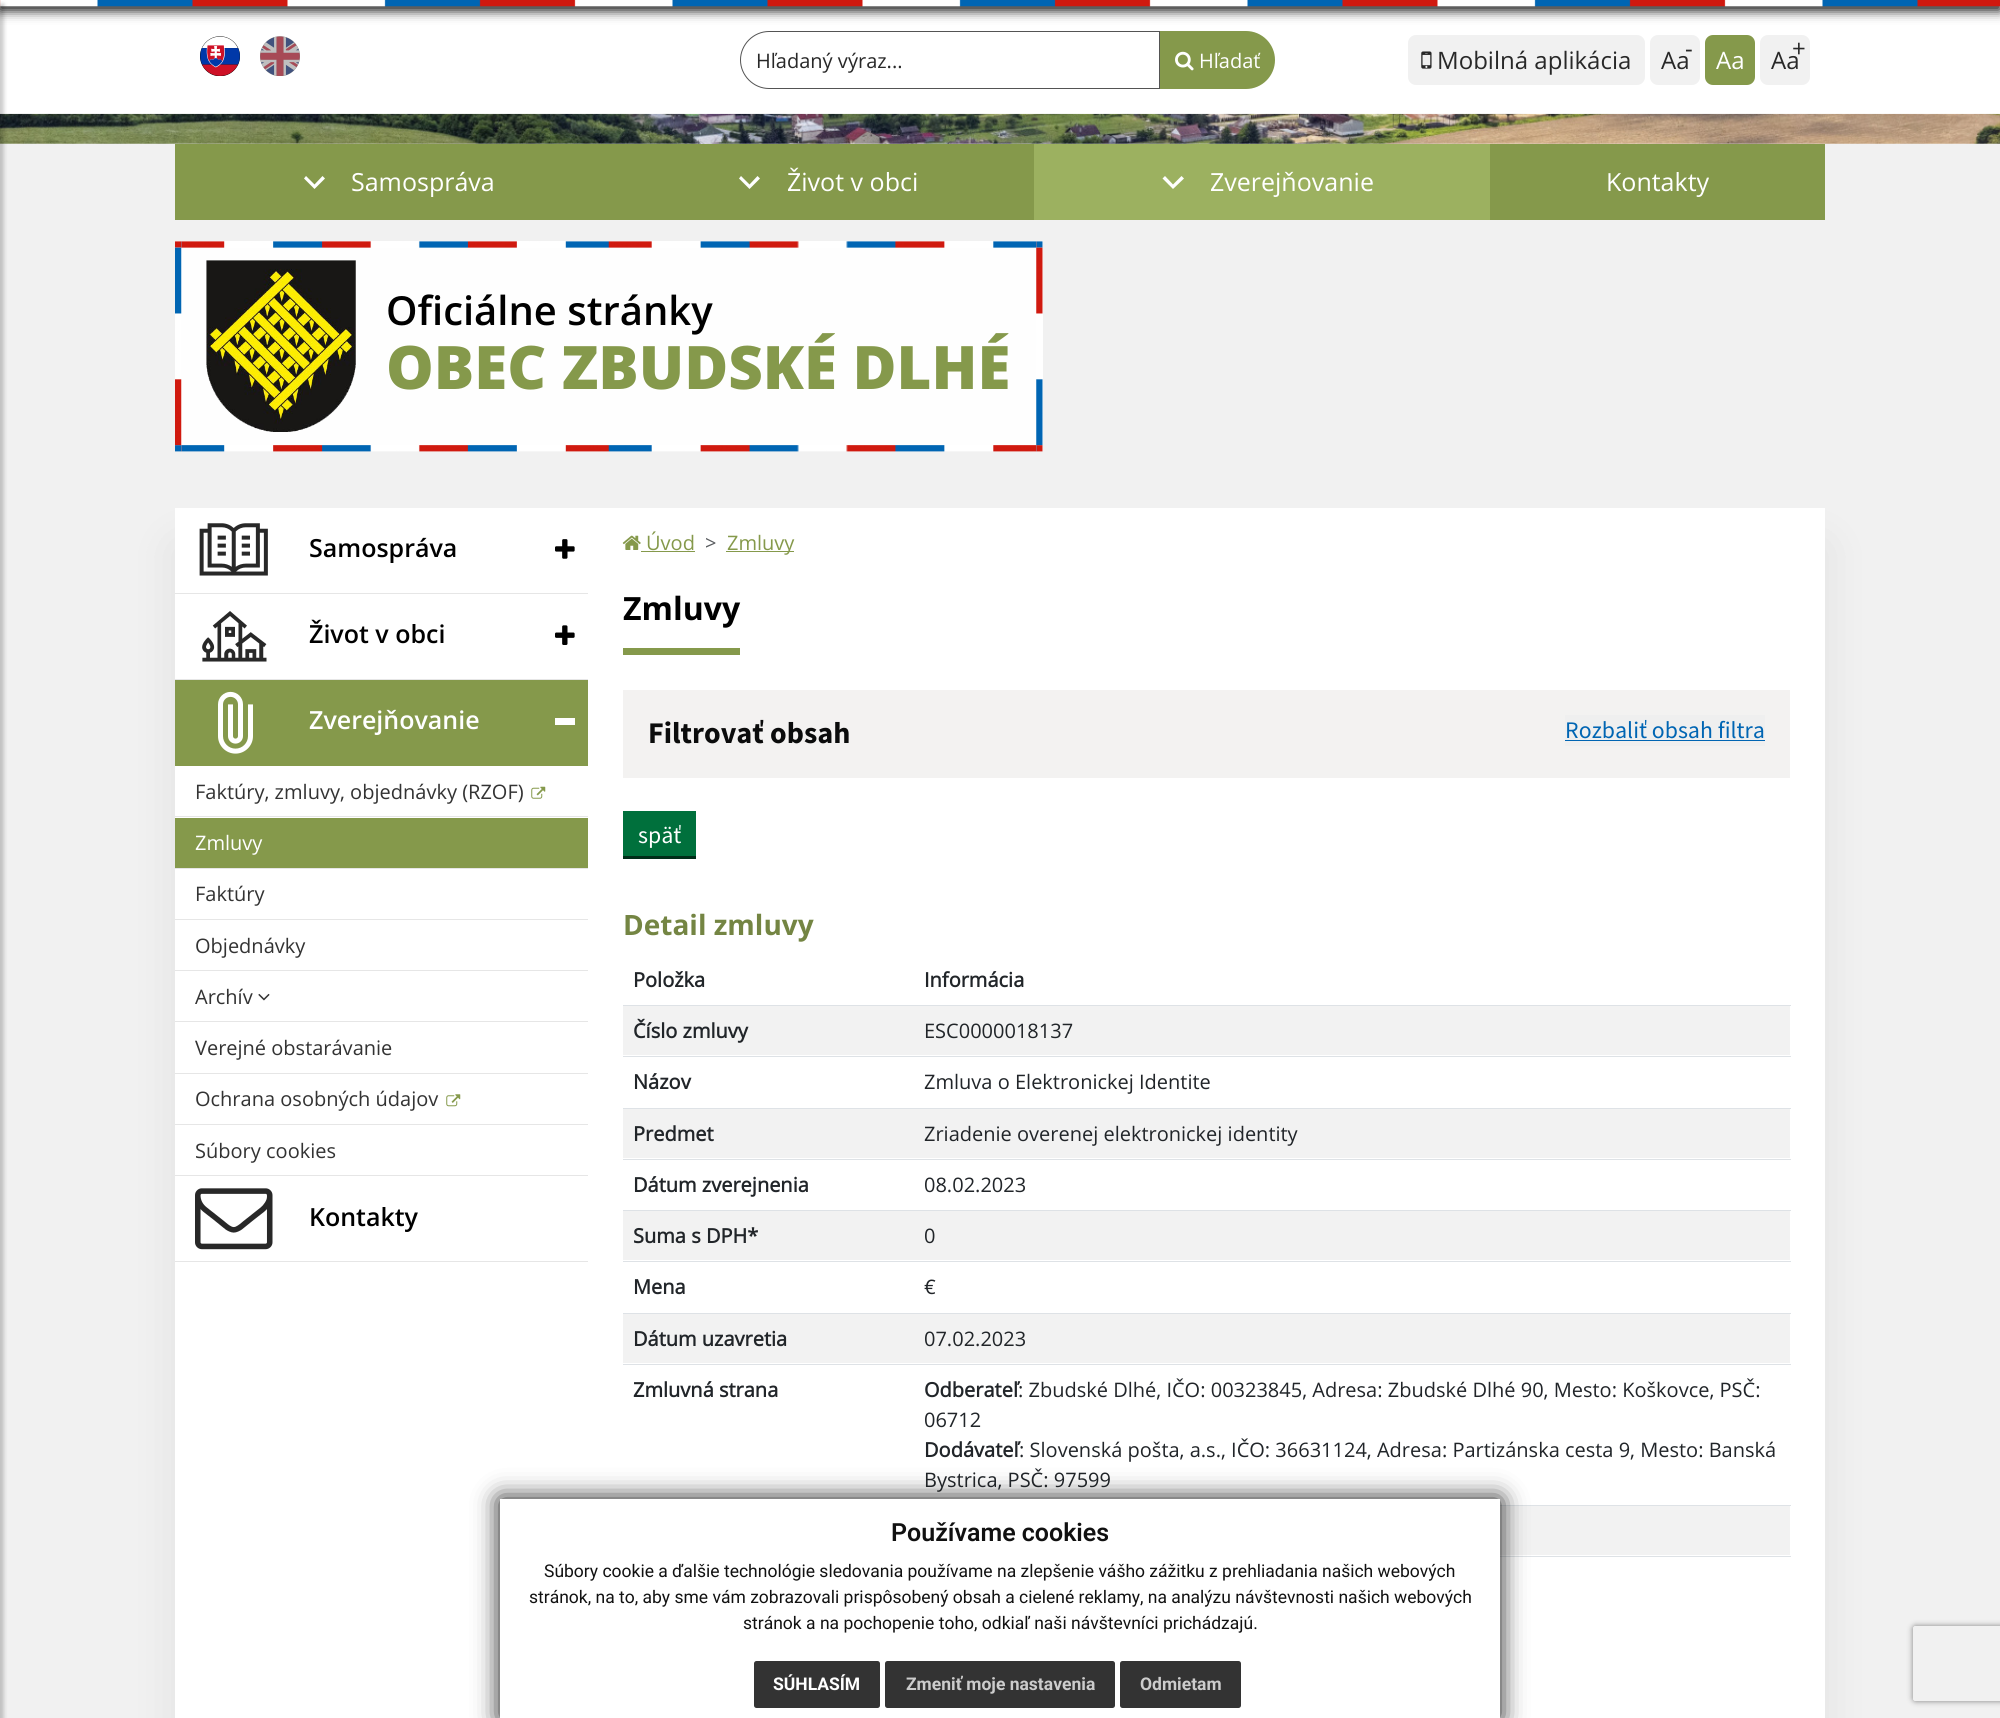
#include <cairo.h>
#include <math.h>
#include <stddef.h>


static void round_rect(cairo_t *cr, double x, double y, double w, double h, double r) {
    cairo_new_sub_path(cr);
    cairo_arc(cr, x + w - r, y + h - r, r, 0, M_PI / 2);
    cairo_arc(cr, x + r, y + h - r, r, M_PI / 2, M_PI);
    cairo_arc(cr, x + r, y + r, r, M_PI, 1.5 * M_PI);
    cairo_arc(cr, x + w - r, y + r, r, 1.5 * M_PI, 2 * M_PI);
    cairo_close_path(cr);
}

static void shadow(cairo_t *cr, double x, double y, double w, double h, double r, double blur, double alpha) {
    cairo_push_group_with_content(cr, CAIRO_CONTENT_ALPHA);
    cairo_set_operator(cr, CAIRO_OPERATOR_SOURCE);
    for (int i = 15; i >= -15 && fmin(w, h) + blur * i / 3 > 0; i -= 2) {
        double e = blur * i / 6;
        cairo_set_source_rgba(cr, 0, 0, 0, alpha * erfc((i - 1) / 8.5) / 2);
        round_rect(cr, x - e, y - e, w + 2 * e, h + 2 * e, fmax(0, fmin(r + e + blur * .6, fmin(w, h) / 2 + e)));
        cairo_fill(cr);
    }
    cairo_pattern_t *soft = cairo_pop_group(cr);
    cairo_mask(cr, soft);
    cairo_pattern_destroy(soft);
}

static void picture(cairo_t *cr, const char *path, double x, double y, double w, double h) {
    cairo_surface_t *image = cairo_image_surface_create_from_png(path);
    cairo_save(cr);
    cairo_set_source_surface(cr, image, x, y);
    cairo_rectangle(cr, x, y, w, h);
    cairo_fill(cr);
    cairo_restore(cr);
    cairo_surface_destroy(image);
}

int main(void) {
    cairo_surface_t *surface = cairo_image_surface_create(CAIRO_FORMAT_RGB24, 2000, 1718);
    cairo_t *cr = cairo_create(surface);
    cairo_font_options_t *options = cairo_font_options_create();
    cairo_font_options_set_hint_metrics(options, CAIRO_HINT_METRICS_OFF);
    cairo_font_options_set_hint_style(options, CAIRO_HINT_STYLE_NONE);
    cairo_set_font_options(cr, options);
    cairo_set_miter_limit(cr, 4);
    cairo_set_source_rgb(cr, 0.945, 0.945, 0.945);
    cairo_paint(cr);
    cairo_set_source_rgb(cr, 1, 1, 1);
    cairo_rectangle(cr, 0, 6, 2000, 108);
    cairo_fill(cr);
    cairo_set_source_rgb(cr, 0, 0, 0);
    shadow(cr, 0, 4, 2000, 6, 0, 6, 1);
    picture(cr, "img1.png", 0, 0, 2000, 7);
    picture(cr, "img6.png", 0, 113, 2000, 31);
    shadow(cr, -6, 4, 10, 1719, 0, 2, 0.2);
    picture(cr, "img2.png", 200, 36, 40, 40);
    picture(cr, "img3.png", 260, 36, 40, 40);
    cairo_new_path(cr);
    cairo_move_to(cr, 769, 31.5);
    cairo_line_to(cr, 1159.5, 31.5);
    cairo_line_to(cr, 1159.5, 88.5);
    cairo_line_to(cr, 769, 88.5);
    cairo_curve_to(cr, 753.5, 88.5, 740.5, 75.5, 740.5, 60);
    cairo_curve_to(cr, 740.5, 44.5, 753.5, 31.5, 769, 31.5);
    cairo_close_path(cr);
    cairo_set_source_rgb(cr, 0.329, 0.329, 0.329);
    cairo_set_line_width(cr, 1);
    cairo_stroke(cr);
    cairo_select_font_face(cr, "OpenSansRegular", CAIRO_FONT_SLANT_NORMAL, CAIRO_FONT_WEIGHT_NORMAL);
    cairo_set_font_size(cr, 20);
    cairo_set_source_rgb(cr, 0.157, 0.157, 0.157);
    cairo_move_to(cr, 756, 68);
    cairo_show_text(cr, "Hľadaný výraz...");
    cairo_set_source_rgb(cr, 0.522, 0.6, 0.294);
    cairo_new_path(cr);
    cairo_move_to(cr, 1160, 31);
    cairo_line_to(cr, 1246, 31);
    cairo_curve_to(cr, 1262, 31, 1275, 44, 1275, 60);
    cairo_curve_to(cr, 1275, 76, 1262, 89, 1246, 89);
    cairo_line_to(cr, 1160, 89);
    cairo_close_path(cr);
    cairo_fill(cr);
    picture(cr, "img4.png", 1175, 51, 19, 20);
    cairo_set_source_rgb(cr, 1, 1, 1);
    cairo_move_to(cr, 1199, 68);
    cairo_show_text(cr, "Hľadať");
    cairo_set_source_rgb(cr, 0.945, 0.945, 0.945);
    round_rect(cr, 1408, 35, 237, 50, 8);
    cairo_fill(cr);
    picture(cr, "img5.png", 1421, 51, 11, 18);
    cairo_set_font_size(cr, 24);
    cairo_set_source_rgb(cr, 0.157, 0.157, 0.157);
    cairo_move_to(cr, 1437, 69);
    cairo_show_text(cr, "Mobilná aplikácia");
    cairo_set_source_rgb(cr, 0.945, 0.945, 0.945);
    round_rect(cr, 1650, 35, 50, 50, 8);
    cairo_fill(cr);
    cairo_set_source_rgb(cr, 0.157, 0.157, 0.157);
    cairo_move_to(cr, 1685, 57);
    cairo_show_text(cr, "-");
    cairo_move_to(cr, 1661, 69);
    cairo_show_text(cr, "Aa");
    cairo_set_source_rgb(cr, 0.522, 0.6, 0.294);
    round_rect(cr, 1705, 35, 50, 50, 8);
    cairo_fill(cr);
    cairo_set_source_rgb(cr, 1, 1, 1);
    cairo_move_to(cr, 1716, 69);
    cairo_show_text(cr, "Aa");
    cairo_set_source_rgb(cr, 0.945, 0.945, 0.945);
    round_rect(cr, 1760, 35, 50, 50, 8);
    cairo_fill(cr);
    cairo_set_source_rgb(cr, 0.157, 0.157, 0.157);
    cairo_move_to(cr, 1792, 57);
    cairo_show_text(cr, "+");
    cairo_move_to(cr, 1771, 69);
    cairo_show_text(cr, "Aa");
    cairo_set_source_rgb(cr, 0.522, 0.6, 0.294);
    cairo_rectangle(cr, 175, 144, 1650, 76);
    cairo_fill(cr);
    cairo_set_source_rgb(cr, 1, 1, 1);
    cairo_new_path(cr);
    cairo_move_to(cr, 322.5, 176);
    cairo_line_to(cr, 325, 178.5);
    cairo_line_to(cr, 314.5, 189);
    cairo_line_to(cr, 304, 178.5);
    cairo_line_to(cr, 306, 176);
    cairo_line_to(cr, 314.5, 184.5);
    cairo_close_path(cr);
    cairo_fill(cr);
    cairo_set_font_size(cr, 25);
    cairo_move_to(cr, 351, 191);
    cairo_show_text(cr, "Samospráva");
    cairo_new_path(cr);
    cairo_move_to(cr, 757.5, 176);
    cairo_line_to(cr, 760, 178.5);
    cairo_line_to(cr, 749.5, 189);
    cairo_line_to(cr, 739, 178.5);
    cairo_line_to(cr, 741, 176);
    cairo_line_to(cr, 749.5, 184.5);
    cairo_close_path(cr);
    cairo_fill(cr);
    cairo_move_to(cr, 787, 191);
    cairo_show_text(cr, "Život v obci");
    cairo_set_source_rgb(cr, 0.612, 0.694, 0.376);
    cairo_rectangle(cr, 1034, 144, 456, 76);
    cairo_fill(cr);
    cairo_set_source_rgb(cr, 1, 1, 1);
    cairo_new_path(cr);
    cairo_move_to(cr, 1181.5, 176);
    cairo_line_to(cr, 1184, 178.5);
    cairo_line_to(cr, 1173, 189);
    cairo_line_to(cr, 1162.5, 178.5);
    cairo_line_to(cr, 1165, 176);
    cairo_line_to(cr, 1173, 184.5);
    cairo_close_path(cr);
    cairo_fill(cr);
    cairo_move_to(cr, 1210, 191);
    cairo_show_text(cr, "Zverejňovanie");
    cairo_move_to(cr, 1606, 191);
    cairo_show_text(cr, "Kontakty");
    cairo_set_source_rgb(cr, 0.996, 0.996, 0.996);
    cairo_rectangle(cr, 175, 241, 868, 210);
    cairo_fill(cr);
    picture(cr, "img7.png", 175, 241, 868, 211);
    picture(cr, "img8.png", 206, 260, 150, 172);
    cairo_select_font_face(cr, "Open Sans SemiBold", CAIRO_FONT_SLANT_NORMAL, CAIRO_FONT_WEIGHT_NORMAL);
    cairo_set_font_size(cr, 40);
    cairo_set_source_rgb(cr, 0, 0, 0);
    cairo_move_to(cr, 386, 325);
    cairo_show_text(cr, "Oficiálne stránky");
    cairo_select_font_face(cr, "Open Sans ExtraBold", CAIRO_FONT_SLANT_NORMAL, CAIRO_FONT_WEIGHT_NORMAL);
    cairo_set_font_size(cr, 60);
    cairo_set_source_rgb(cr, 0.522, 0.6, 0.294);
    cairo_move_to(cr, 386, 389);
    cairo_show_text(cr, "OBEC ZBUDSKÉ DLHÉ");
    cairo_set_source_rgb(cr, 0, 0, 0);
    shadow(cr, 175, 545, 1650, 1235, 0, 25, 0.07);
    cairo_set_source_rgb(cr, 1, 1, 1);
    cairo_rectangle(cr, 175, 508, 1650, 1210);
    cairo_fill(cr);
    cairo_set_source_rgb(cr, 0.902, 0.902, 0.902);
    cairo_rectangle(cr, 175, 593, 413, 1);
    cairo_fill(cr);
    picture(cr, "img9.png", 199, 523, 69, 53);
    cairo_select_font_face(cr, "Open Sans SemiBold", CAIRO_FONT_SLANT_NORMAL, CAIRO_FONT_WEIGHT_NORMAL);
    cairo_set_font_size(cr, 25);
    cairo_set_source_rgb(cr, 0, 0, 0);
    cairo_move_to(cr, 309, 557);
    cairo_show_text(cr, "Samospráva");
    picture(cr, "img10.png", 555, 539, 20, 20);
    cairo_set_source_rgb(cr, 0.902, 0.902, 0.902);
    cairo_rectangle(cr, 175, 679, 413, 1);
    cairo_fill(cr);
    picture(cr, "img11.png", 202, 611, 65, 51);
    cairo_set_source_rgb(cr, 0, 0, 0);
    cairo_move_to(cr, 309, 643);
    cairo_show_text(cr, "Život v obci");
    picture(cr, "img12.png", 555, 625, 20, 20);
    cairo_set_source_rgb(cr, 0.522, 0.6, 0.294);
    cairo_rectangle(cr, 175, 680, 413, 86);
    cairo_fill(cr);
    picture(cr, "img13.png", 218, 691, 35, 63);
    cairo_set_source_rgb(cr, 1, 1, 1);
    cairo_move_to(cr, 309, 729);
    cairo_show_text(cr, "Zverejňovanie");
    cairo_rectangle(cr, 555, 718, 20, 7);
    cairo_fill(cr);
    cairo_set_source_rgb(cr, 0.902, 0.902, 0.902);
    cairo_rectangle(cr, 175, 816, 413, 1);
    cairo_fill(cr);
    cairo_select_font_face(cr, "OpenSansRegular", CAIRO_FONT_SLANT_NORMAL, CAIRO_FONT_WEIGHT_NORMAL);
    cairo_set_font_size(cr, 20);
    cairo_set_source_rgb(cr, 0.2, 0.2, 0.2);
    cairo_move_to(cr, 195, 799);
    cairo_show_text(cr, "Faktúry, zmluvy, objednávky (RZOF)");
    picture(cr, "img14.png", 531, 786, 15, 13);
    cairo_set_source_rgb(cr, 0.902, 0.902, 0.902);
    cairo_rectangle(cr, 175, 868, 413, 1);
    cairo_fill(cr);
    cairo_set_source_rgb(cr, 0.522, 0.6, 0.294);
    cairo_rectangle(cr, 175, 818, 413, 50);
    cairo_fill(cr);
    cairo_set_source_rgb(cr, 1, 1, 1);
    cairo_move_to(cr, 195, 850);
    cairo_show_text(cr, "Zmluvy");
    cairo_set_source_rgb(cr, 0.902, 0.902, 0.902);
    cairo_rectangle(cr, 175, 919, 413, 1);
    cairo_fill(cr);
    cairo_set_source_rgb(cr, 0.2, 0.2, 0.2);
    cairo_move_to(cr, 195, 901);
    cairo_show_text(cr, "Faktúry");
    cairo_set_source_rgb(cr, 0.902, 0.902, 0.902);
    cairo_rectangle(cr, 175, 970, 413, 1);
    cairo_fill(cr);
    cairo_set_source_rgb(cr, 0.2, 0.2, 0.2);
    cairo_move_to(cr, 195, 953);
    cairo_show_text(cr, "Objednávky");
    cairo_set_source_rgb(cr, 0.902, 0.902, 0.902);
    cairo_rectangle(cr, 175, 1021, 413, 1);
    cairo_fill(cr);
    cairo_set_source_rgb(cr, 0.2, 0.2, 0.2);
    cairo_move_to(cr, 195, 1004);
    cairo_show_text(cr, "Archív");
    picture(cr, "img15.png", 258, 993, 12, 8);
    cairo_set_source_rgb(cr, 0.902, 0.902, 0.902);
    cairo_rectangle(cr, 175, 1073, 413, 1);
    cairo_fill(cr);
    cairo_set_source_rgb(cr, 0.2, 0.2, 0.2);
    cairo_move_to(cr, 195, 1055);
    cairo_show_text(cr, "Verejné obstarávanie");
    cairo_set_source_rgb(cr, 0.902, 0.902, 0.902);
    cairo_rectangle(cr, 175, 1124, 413, 1);
    cairo_fill(cr);
    cairo_set_source_rgb(cr, 0.2, 0.2, 0.2);
    cairo_move_to(cr, 195, 1106);
    cairo_show_text(cr, "Ochrana osobných údajov");
    picture(cr, "img16.png", 446, 1094, 15, 13);
    cairo_set_source_rgb(cr, 0.902, 0.902, 0.902);
    cairo_rectangle(cr, 175, 1175, 413, 1);
    cairo_fill(cr);
    cairo_set_source_rgb(cr, 0.2, 0.2, 0.2);
    cairo_move_to(cr, 195, 1158);
    cairo_show_text(cr, "Súbory cookies");
    cairo_set_source_rgb(cr, 0.902, 0.902, 0.902);
    cairo_rectangle(cr, 175, 1261, 413, 1);
    cairo_fill(cr);
    picture(cr, "img17.png", 195, 1188, 78, 62);
    cairo_select_font_face(cr, "Open Sans SemiBold", CAIRO_FONT_SLANT_NORMAL, CAIRO_FONT_WEIGHT_NORMAL);
    cairo_set_font_size(cr, 25);
    cairo_set_source_rgb(cr, 0, 0, 0);
    cairo_move_to(cr, 309, 1226);
    cairo_show_text(cr, "Kontakty");
    picture(cr, "img18.png", 622, 535, 19, 15);
    cairo_select_font_face(cr, "OpenSansRegular", CAIRO_FONT_SLANT_NORMAL, CAIRO_FONT_WEIGHT_NORMAL);
    cairo_set_font_size(cr, 20);
    cairo_set_source_rgb(cr, 0.522, 0.6, 0.294);
    cairo_move_to(cr, 646, 550);
    cairo_show_text(cr, "Úvod");
    cairo_rectangle(cr, 641, 551, 54, 1);
    cairo_fill(cr);
    cairo_set_source_rgb(cr, 0.349, 0.361, 0.373);
    cairo_move_to(cr, 705, 550);
    cairo_show_text(cr, ">");
    cairo_set_source_rgb(cr, 0.522, 0.6, 0.294);
    cairo_rectangle(cr, 726, 551, 68, 1);
    cairo_fill(cr);
    cairo_move_to(cr, 727, 550);
    cairo_show_text(cr, "Zmluvy");
    cairo_rectangle(cr, 623, 648, 117, 7);
    cairo_fill(cr);
    cairo_select_font_face(cr, "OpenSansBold", CAIRO_FONT_SLANT_NORMAL, CAIRO_FONT_WEIGHT_BOLD);
    cairo_set_font_size(cr, 32);
    cairo_set_source_rgb(cr, 0, 0, 0);
    cairo_move_to(cr, 623, 620);
    cairo_show_text(cr, "Zmluvy");
    cairo_set_source_rgb(cr, 0.953, 0.949, 0.945);
    cairo_rectangle(cr, 623, 690, 1167, 88);
    cairo_fill(cr);
    cairo_select_font_face(cr, "Source Sans Pro", CAIRO_FONT_SLANT_NORMAL, CAIRO_FONT_WEIGHT_BOLD);
    cairo_set_font_size(cr, 30);
    cairo_set_source_rgb(cr, 0.043, 0.047, 0.047);
    cairo_move_to(cr, 648, 743);
    cairo_show_text(cr, "Filtrovať obsah");
    cairo_set_source_rgb(cr, 0.937, 0.937, 0.937);
    cairo_rectangle(cr, 1565, 715, 200, 31);
    cairo_fill(cr);
    cairo_select_font_face(cr, "Source Sans Pro", CAIRO_FONT_SLANT_NORMAL, CAIRO_FONT_WEIGHT_NORMAL);
    cairo_set_font_size(cr, 23.75);
    cairo_set_source_rgb(cr, 0, 0.396, 0.702);
    cairo_move_to(cr, 1565, 738);
    cairo_show_text(cr, "Rozbaliť obsah filtra");
    cairo_rectangle(cr, 1565, 740, 200, 1);
    cairo_fill(cr);
    cairo_set_source_rgb(cr, 0, 0.176, 0.094);
    cairo_rectangle(cr, 623, 856, 73, 3);
    cairo_fill(cr);
    cairo_set_source_rgb(cr, 0, 0.439, 0.235);
    cairo_rectangle(cr, 623, 811, 73, 45);
    cairo_fill(cr);
    cairo_set_source_rgb(cr, 1, 1, 1);
    cairo_move_to(cr, 638, 843);
    cairo_show_text(cr, "späť");
    cairo_select_font_face(cr, "OpenSansBold", CAIRO_FONT_SLANT_NORMAL, CAIRO_FONT_WEIGHT_BOLD);
    cairo_set_font_size(cr, 28);
    cairo_set_source_rgb(cr, 0.455, 0.522, 0.263);
    cairo_move_to(cr, 623, 935);
    cairo_show_text(cr, "Detail zmluvy");
    cairo_select_font_face(cr, "OpenSansRegular", CAIRO_FONT_SLANT_NORMAL, CAIRO_FONT_WEIGHT_BOLD);
    cairo_set_font_size(cr, 20);
    cairo_set_source_rgb(cr, 0.129, 0.145, 0.161);
    cairo_move_to(cr, 633, 987);
    cairo_show_text(cr, "Položka");
    cairo_set_source_rgb(cr, 0.871, 0.886, 0.902);
    cairo_rectangle(cr, 623, 1005, 1168, 1);
    cairo_fill(cr);
    cairo_set_source_rgb(cr, 0.129, 0.145, 0.161);
    cairo_move_to(cr, 924, 987);
    cairo_show_text(cr, "Informácia");
    cairo_set_source_rgb(cr, 0.949, 0.949, 0.949);
    cairo_rectangle(cr, 623, 1006, 1167, 49);
    cairo_fill(cr);
    cairo_set_source_rgb(cr, 0.129, 0.145, 0.161);
    cairo_move_to(cr, 633, 1038);
    cairo_show_text(cr, "Číslo zmluvy");
    cairo_set_source_rgb(cr, 0.871, 0.886, 0.902);
    cairo_rectangle(cr, 623, 1056, 1168, 1);
    cairo_fill(cr);
    cairo_select_font_face(cr, "OpenSansRegular", CAIRO_FONT_SLANT_NORMAL, CAIRO_FONT_WEIGHT_NORMAL);
    cairo_set_source_rgb(cr, 0.129, 0.145, 0.161);
    cairo_move_to(cr, 924, 1038);
    cairo_show_text(cr, "ESC0000018137");
    cairo_select_font_face(cr, "OpenSansRegular", CAIRO_FONT_SLANT_NORMAL, CAIRO_FONT_WEIGHT_BOLD);
    cairo_move_to(cr, 633, 1089);
    cairo_show_text(cr, "Názov");
    cairo_set_source_rgb(cr, 0.871, 0.886, 0.902);
    cairo_rectangle(cr, 623, 1108, 1168, 1);
    cairo_fill(cr);
    cairo_select_font_face(cr, "OpenSansRegular", CAIRO_FONT_SLANT_NORMAL, CAIRO_FONT_WEIGHT_NORMAL);
    cairo_set_source_rgb(cr, 0.129, 0.145, 0.161);
    cairo_move_to(cr, 924, 1089);
    cairo_show_text(cr, "Zmluva o Elektronickej Identite");
    cairo_set_source_rgb(cr, 0.949, 0.949, 0.949);
    cairo_rectangle(cr, 623, 1109, 1167, 49);
    cairo_fill(cr);
    cairo_select_font_face(cr, "OpenSansRegular", CAIRO_FONT_SLANT_NORMAL, CAIRO_FONT_WEIGHT_BOLD);
    cairo_set_source_rgb(cr, 0.129, 0.145, 0.161);
    cairo_move_to(cr, 633, 1141);
    cairo_show_text(cr, "Predmet");
    cairo_set_source_rgb(cr, 0.871, 0.886, 0.902);
    cairo_rectangle(cr, 623, 1159, 1168, 1);
    cairo_fill(cr);
    cairo_select_font_face(cr, "OpenSansRegular", CAIRO_FONT_SLANT_NORMAL, CAIRO_FONT_WEIGHT_NORMAL);
    cairo_set_source_rgb(cr, 0.129, 0.145, 0.161);
    cairo_move_to(cr, 924, 1141);
    cairo_show_text(cr, "Zriadenie overenej elektronickej identity");
    cairo_select_font_face(cr, "OpenSansRegular", CAIRO_FONT_SLANT_NORMAL, CAIRO_FONT_WEIGHT_BOLD);
    cairo_move_to(cr, 633, 1192);
    cairo_show_text(cr, "Dátum zverejnenia");
    cairo_set_source_rgb(cr, 0.871, 0.886, 0.902);
    cairo_rectangle(cr, 623, 1210, 1168, 1);
    cairo_fill(cr);
    cairo_select_font_face(cr, "OpenSansRegular", CAIRO_FONT_SLANT_NORMAL, CAIRO_FONT_WEIGHT_NORMAL);
    cairo_set_source_rgb(cr, 0.129, 0.145, 0.161);
    cairo_move_to(cr, 924, 1192);
    cairo_show_text(cr, "08.02.2023");
    cairo_set_source_rgb(cr, 0.949, 0.949, 0.949);
    cairo_rectangle(cr, 623, 1211, 1167, 49);
    cairo_fill(cr);
    cairo_select_font_face(cr, "OpenSansRegular", CAIRO_FONT_SLANT_NORMAL, CAIRO_FONT_WEIGHT_BOLD);
    cairo_set_source_rgb(cr, 0.129, 0.145, 0.161);
    cairo_move_to(cr, 633, 1243);
    cairo_show_text(cr, "Suma s DPH*");
    cairo_set_source_rgb(cr, 0.871, 0.886, 0.902);
    cairo_rectangle(cr, 623, 1261, 1168, 1);
    cairo_fill(cr);
    cairo_select_font_face(cr, "OpenSansRegular", CAIRO_FONT_SLANT_NORMAL, CAIRO_FONT_WEIGHT_NORMAL);
    cairo_set_source_rgb(cr, 0.129, 0.145, 0.161);
    cairo_move_to(cr, 924, 1243);
    cairo_show_text(cr, "0");
    cairo_select_font_face(cr, "OpenSansRegular", CAIRO_FONT_SLANT_NORMAL, CAIRO_FONT_WEIGHT_BOLD);
    cairo_move_to(cr, 633, 1294);
    cairo_show_text(cr, "Mena");
    cairo_set_source_rgb(cr, 0.871, 0.886, 0.902);
    cairo_rectangle(cr, 623, 1313, 1168, 1);
    cairo_fill(cr);
    cairo_select_font_face(cr, "OpenSansRegular", CAIRO_FONT_SLANT_NORMAL, CAIRO_FONT_WEIGHT_NORMAL);
    cairo_set_source_rgb(cr, 0.129, 0.145, 0.161);
    cairo_move_to(cr, 924, 1294);
    cairo_show_text(cr, "€");
    cairo_set_source_rgb(cr, 0.949, 0.949, 0.949);
    cairo_rectangle(cr, 623, 1314, 1167, 49);
    cairo_fill(cr);
    cairo_select_font_face(cr, "OpenSansRegular", CAIRO_FONT_SLANT_NORMAL, CAIRO_FONT_WEIGHT_BOLD);
    cairo_set_source_rgb(cr, 0.129, 0.145, 0.161);
    cairo_move_to(cr, 633, 1346);
    cairo_show_text(cr, "Dátum uzavretia");
    cairo_set_source_rgb(cr, 0.871, 0.886, 0.902);
    cairo_rectangle(cr, 623, 1364, 1168, 1);
    cairo_fill(cr);
    cairo_select_font_face(cr, "OpenSansRegular", CAIRO_FONT_SLANT_NORMAL, CAIRO_FONT_WEIGHT_NORMAL);
    cairo_set_source_rgb(cr, 0.129, 0.145, 0.161);
    cairo_move_to(cr, 924, 1346);
    cairo_show_text(cr, "07.02.2023");
    cairo_select_font_face(cr, "OpenSansRegular", CAIRO_FONT_SLANT_NORMAL, CAIRO_FONT_WEIGHT_BOLD);
    cairo_move_to(cr, 633, 1397);
    cairo_show_text(cr, "Zmluvná strana");
    cairo_set_source_rgb(cr, 0.871, 0.886, 0.902);
    cairo_rectangle(cr, 1500, 1505, 291, 1);
    cairo_fill(cr);
    cairo_set_source_rgb(cr, 0.129, 0.145, 0.161);
    cairo_move_to(cr, 924, 1397);
    cairo_show_text(cr, "Odberateľ");
    cairo_select_font_face(cr, "OpenSansRegular", CAIRO_FONT_SLANT_NORMAL, CAIRO_FONT_WEIGHT_NORMAL);
    cairo_move_to(cr, 1018, 1397);
    cairo_show_text(cr, ": Zbudské Dlhé, IČO: 00323845, Adresa: Zbudské Dlhé 90, Mesto: Koškovce, PSČ:");
    cairo_move_to(cr, 924, 1427);
    cairo_show_text(cr, "06712");
    cairo_select_font_face(cr, "OpenSansRegular", CAIRO_FONT_SLANT_NORMAL, CAIRO_FONT_WEIGHT_BOLD);
    cairo_move_to(cr, 924, 1457);
    cairo_show_text(cr, "Dodávateľ");
    cairo_select_font_face(cr, "OpenSansRegular", CAIRO_FONT_SLANT_NORMAL, CAIRO_FONT_WEIGHT_NORMAL);
    cairo_move_to(cr, 1019, 1457);
    cairo_show_text(cr, ": Slovenská pošta, a.s., IČO: 36631124, Adresa: Partizánska cesta 9, Mesto: Banská");
    cairo_move_to(cr, 924, 1487);
    cairo_show_text(cr, "Bystrica, PSČ: 97599");
    cairo_set_source_rgb(cr, 0.949, 0.949, 0.949);
    cairo_rectangle(cr, 1500, 1506, 290, 49);
    cairo_fill(cr);
    cairo_set_source_rgb(cr, 0.871, 0.886, 0.902);
    cairo_rectangle(cr, 1500, 1556, 291, 1);
    cairo_fill(cr);
    cairo_set_source_rgb(cr, 0.067, 0.067, 0.067);
    shadow(cr, 500, 1499, 1000, 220, 0, 12.5, 1);
    cairo_set_source_rgb(cr, 1, 1, 1);
    cairo_rectangle(cr, 500, 1499, 1000, 219);
    cairo_fill(cr);
    cairo_select_font_face(cr, "Roboto SemiBold", CAIRO_FONT_SLANT_NORMAL, CAIRO_FONT_WEIGHT_NORMAL);
    cairo_set_font_size(cr, 25);
    cairo_set_source_rgb(cr, 0.067, 0.067, 0.067);
    cairo_move_to(cr, 891, 1541);
    cairo_show_text(cr, "Používame cookies");
    cairo_select_font_face(cr, "Roboto", CAIRO_FONT_SLANT_NORMAL, CAIRO_FONT_WEIGHT_NORMAL);
    cairo_set_font_size(cr, 17.5);
    cairo_move_to(cr, 544, 1577);
    cairo_show_text(cr, "Súbory cookie a ďalšie technológie sledovania používame na zlepšenie vášho zážitku z prehliadania našich webových");
    cairo_move_to(cr, 529, 1603);
    cairo_show_text(cr, "stránok, na to, aby sme vám zobrazovali prispôsobený obsah a cielené reklamy, na analýzu návštevnosti našich webových");
    cairo_move_to(cr, 743, 1629);
    cairo_show_text(cr, "stránok a na pochopenie toho, odkiaľ naši návštevníci prichádzajú.");
    cairo_set_source_rgb(cr, 0.2, 0.2, 0.2);
    round_rect(cr, 754, 1661, 126, 47, 2.5);
    cairo_fill(cr);
    cairo_select_font_face(cr, "Roboto", CAIRO_FONT_SLANT_NORMAL, CAIRO_FONT_WEIGHT_BOLD);
    cairo_set_source_rgb(cr, 1, 1, 1);
    cairo_move_to(cr, 773, 1690);
    cairo_show_text(cr, "SÚHLASÍM");
    cairo_set_source_rgb(cr, 0.2, 0.2, 0.2);
    round_rect(cr, 885, 1661, 230, 47, 2.5);
    cairo_fill(cr);
    cairo_set_source_rgb(cr, 0.8, 0.8, 0.8);
    cairo_move_to(cr, 906, 1690);
    cairo_show_text(cr, "Zmeniť moje nastavenia");
    cairo_set_source_rgb(cr, 0.2, 0.2, 0.2);
    round_rect(cr, 1120, 1661, 121, 47, 2.5);
    cairo_fill(cr);
    cairo_set_source_rgb(cr, 0.8, 0.8, 0.8);
    cairo_move_to(cr, 1140, 1690);
    cairo_show_text(cr, "Odmietam");
    cairo_save(cr);
    cairo_set_fill_rule(cr, CAIRO_FILL_RULE_EVEN_ODD);
    cairo_new_path(cr);
    cairo_move_to(cr, 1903, 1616);
    cairo_line_to(cr, 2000, 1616);
    cairo_line_to(cr, 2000, 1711);
    cairo_line_to(cr, 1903, 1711);
    cairo_close_path(cr);
    cairo_move_to(cr, 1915.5, 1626);
    cairo_line_to(cr, 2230.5, 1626);
    cairo_curve_to(cr, 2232, 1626, 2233, 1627, 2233, 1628.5);
    cairo_line_to(cr, 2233, 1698.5);
    cairo_curve_to(cr, 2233, 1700, 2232, 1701, 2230.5, 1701);
    cairo_line_to(cr, 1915.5, 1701);
    cairo_curve_to(cr, 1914, 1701, 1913, 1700, 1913, 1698.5);
    cairo_line_to(cr, 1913, 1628.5);
    cairo_curve_to(cr, 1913, 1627, 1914, 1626, 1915.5, 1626);
    cairo_close_path(cr);
    cairo_clip(cr);
    cairo_set_source_rgb(cr, 0.502, 0.502, 0.502);
    shadow(cr, 1913, 1626, 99, 75, 2.5, 3, 1);
    cairo_restore(cr);
    cairo_surface_write_to_png(surface, "page.png");
    cairo_font_options_destroy(options);
    cairo_destroy(cr);
    cairo_surface_destroy(surface);
    return 0;
}
